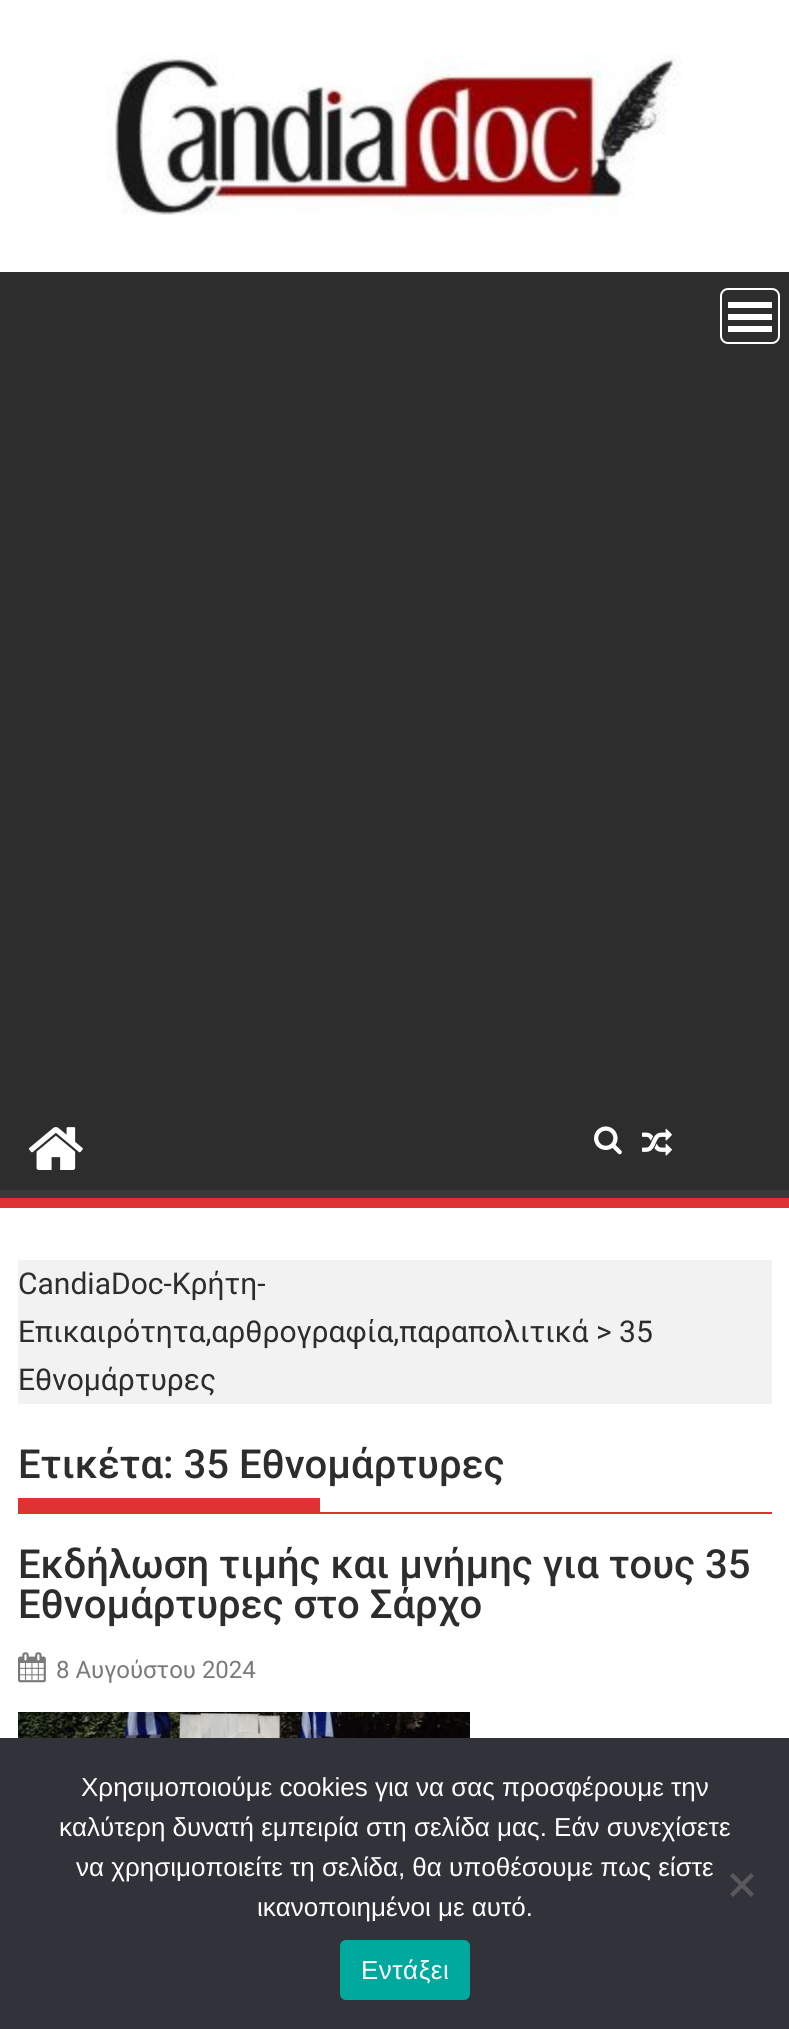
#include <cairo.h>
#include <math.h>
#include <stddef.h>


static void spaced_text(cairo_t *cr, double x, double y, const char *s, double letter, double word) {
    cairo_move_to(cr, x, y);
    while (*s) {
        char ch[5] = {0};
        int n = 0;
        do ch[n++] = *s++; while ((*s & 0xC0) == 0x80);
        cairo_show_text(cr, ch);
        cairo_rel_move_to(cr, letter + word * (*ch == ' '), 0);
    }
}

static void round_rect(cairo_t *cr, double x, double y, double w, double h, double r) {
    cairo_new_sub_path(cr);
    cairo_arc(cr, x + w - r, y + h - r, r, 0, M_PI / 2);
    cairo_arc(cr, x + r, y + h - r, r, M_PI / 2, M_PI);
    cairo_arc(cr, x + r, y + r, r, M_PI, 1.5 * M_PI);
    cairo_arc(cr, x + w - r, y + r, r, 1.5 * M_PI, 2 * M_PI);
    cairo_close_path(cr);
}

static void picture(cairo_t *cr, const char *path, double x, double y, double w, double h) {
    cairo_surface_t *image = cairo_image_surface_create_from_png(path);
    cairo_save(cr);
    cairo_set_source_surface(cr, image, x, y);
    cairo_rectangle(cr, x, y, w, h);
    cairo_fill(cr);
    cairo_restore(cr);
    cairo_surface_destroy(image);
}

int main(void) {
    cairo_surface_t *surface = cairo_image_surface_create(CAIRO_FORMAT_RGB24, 789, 2029);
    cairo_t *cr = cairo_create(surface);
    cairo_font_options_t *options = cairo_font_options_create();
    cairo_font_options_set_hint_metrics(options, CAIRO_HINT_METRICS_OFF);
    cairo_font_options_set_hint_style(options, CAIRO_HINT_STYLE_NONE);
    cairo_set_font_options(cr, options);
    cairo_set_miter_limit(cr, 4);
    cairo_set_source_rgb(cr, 1, 1, 1);
    cairo_paint(cr);
    picture(cr, "img1.png", 106, 54, 576, 161);
    cairo_set_source_rgb(cr, 0.176, 0.176, 0.176);
    cairo_rectangle(cr, 0, 272, 789, 918);
    cairo_fill(cr);
    cairo_save(cr);
    cairo_rectangle(cr, 0, 272, 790, 926);
    cairo_clip(cr);
    cairo_set_source_rgb(cr, 0.224, 0.224, 0.224);
    cairo_set_fill_rule(cr, CAIRO_FILL_RULE_EVEN_ODD);
    cairo_new_path(cr);
    cairo_move_to(cr, -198, 74);
    cairo_line_to(cr, 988, 74);
    cairo_line_to(cr, 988, 1396);
    cairo_line_to(cr, -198, 1396);
    cairo_close_path(cr);
    cairo_move_to(cr, -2, 260);
    cairo_line_to(cr, 788, 260);
    cairo_curve_to(cr, 789, 260, 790, 261, 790, 262);
    cairo_line_to(cr, 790, 1188);
    cairo_curve_to(cr, 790, 1189, 789, 1190, 788, 1190);
    cairo_line_to(cr, -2, 1190);
    cairo_curve_to(cr, -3, 1190, -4, 1189, -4, 1188);
    cairo_line_to(cr, -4, 262);
    cairo_curve_to(cr, -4, 261, -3, 260, -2, 260);
    cairo_close_path(cr);
    cairo_fill(cr);
    cairo_restore(cr);
    cairo_set_source_rgb(cr, 0.867, 0.2, 0.2);
    cairo_rectangle(cr, 0, 1198, 789, 10);
    cairo_fill(cr);
    round_rect(cr, 721, 289, 58, 54, 7);
    cairo_set_source_rgb(cr, 1, 1, 1);
    cairo_stroke(cr);
    cairo_rectangle(cr, 728, 326, 44, 6);
    cairo_fill(cr);
    cairo_rectangle(cr, 728, 314, 44, 6);
    cairo_fill(cr);
    cairo_rectangle(cr, 728, 302, 44, 6);
    cairo_fill(cr);
    picture(cr, "img2.png", 28, 1127, 55, 43);
    picture(cr, "img3.png", 594, 1126, 28, 29);
    picture(cr, "img4.png", 642, 1128, 30, 28);
    cairo_set_source_rgb(cr, 0.949, 0.949, 0.949);
    cairo_rectangle(cr, 18, 1260, 754, 144);
    cairo_fill(cr);
    cairo_select_font_face(cr, "Roboto", CAIRO_FONT_SLANT_NORMAL, CAIRO_FONT_WEIGHT_NORMAL);
    cairo_set_font_size(cr, 30);
    cairo_set_source_rgb(cr, 0.176, 0.176, 0.176);
    cairo_move_to(cr, 18, 1294);
    cairo_show_text(cr, "CandiaDoc-Κρήτη-");
    cairo_move_to(cr, 18, 1342);
    cairo_show_text(cr, "Επικαιρότητα,αρθρογραφία,παραπολιτικά > 35");
    cairo_move_to(cr, 18, 1390);
    cairo_show_text(cr, "Εθνομάρτυρες");
    cairo_set_source_rgb(cr, 0.867, 0.2, 0.2);
    cairo_rectangle(cr, 18, 1512, 754, 2);
    cairo_fill(cr);
    cairo_select_font_face(cr, "Roboto Medium", CAIRO_FONT_SLANT_NORMAL, CAIRO_FONT_WEIGHT_NORMAL);
    cairo_set_font_size(cr, 40);
    cairo_set_source_rgb(cr, 0.176, 0.176, 0.176);
    cairo_move_to(cr, 18, 1478);
    cairo_show_text(cr, "Ετικέτα: 35 Εθνομάρτυρες");
    cairo_set_source_rgb(cr, 0.867, 0.2, 0.2);
    cairo_rectangle(cr, 18, 1498, 302, 14);
    cairo_fill(cr);
    cairo_set_source_rgb(cr, 0.176, 0.176, 0.176);
    cairo_move_to(cr, 18, 1578);
    cairo_show_text(cr, "Εκδήλωση τιμής και μνήμης για τους 35");
    cairo_move_to(cr, 18, 1618);
    cairo_show_text(cr, "Εθνομάρτυρες στο Σάρχο");
    picture(cr, "img5.png", 18, 1652, 28, 31);
    cairo_select_font_face(cr, "Roboto", CAIRO_FONT_SLANT_NORMAL, CAIRO_FONT_WEIGHT_NORMAL);
    cairo_set_font_size(cr, 24);
    cairo_set_source_rgb(cr, 0.478, 0.478, 0.478);
    cairo_move_to(cr, 56, 1678);
    cairo_show_text(cr, "8 Αυγούστου 2024");
    picture(cr, "img6.png", 18, 1712, 452, 26);
    cairo_set_source_rgb(cr, 0.196, 0.196, 0.227);
    cairo_rectangle(cr, 0, 1738, 789, 291);
    cairo_fill(cr);
    cairo_select_font_face(cr, "Liberation Sans", CAIRO_FONT_SLANT_NORMAL, CAIRO_FONT_WEIGHT_NORMAL);
    cairo_set_font_size(cr, 26);
    cairo_set_source_rgb(cr, 1, 1, 1);
    cairo_move_to(cr, 81, 1796);
    cairo_show_text(cr, "Χρησιμοποιούμε cookies για να σας προσφέρουμε την");
    cairo_move_to(cr, 59, 1836);
    cairo_show_text(cr, "καλύτερη δυνατή εμπειρία στη σελίδα μας. Εάν συνεχίσετε");
    cairo_move_to(cr, 76, 1876);
    cairo_show_text(cr, "να χρησιμοποιείτε τη σελίδα, θα υποθέσουμε πως είστε");
    cairo_move_to(cr, 257, 1916);
    cairo_show_text(cr, "ικανοποιημένοι με αυτό.");
    cairo_set_source_rgb(cr, 0.349, 0.349, 0.365);
    cairo_new_path(cr);
    cairo_move_to(cr, 751, 1873);
    cairo_line_to(cr, 754, 1876);
    cairo_line_to(cr, 733, 1897);
    cairo_line_to(cr, 730, 1894);
    cairo_close_path(cr);
    cairo_fill(cr);
    cairo_new_path(cr);
    cairo_move_to(cr, 730, 1876);
    cairo_line_to(cr, 733, 1873);
    cairo_line_to(cr, 754, 1894);
    cairo_line_to(cr, 751, 1897);
    cairo_close_path(cr);
    cairo_fill(cr);
    cairo_set_source_rgb(cr, 0, 0.663, 0.616);
    round_rect(cr, 340, 1940, 130, 60, 6);
    cairo_fill(cr);
    cairo_set_source_rgb(cr, 1, 1, 1);
    spaced_text(cr, 361, 1979, "Εντάξει", 0.5, 0);
    cairo_surface_write_to_png(surface, "page.png");
    cairo_font_options_destroy(options);
    cairo_destroy(cr);
    cairo_surface_destroy(surface);
    return 0;
}
